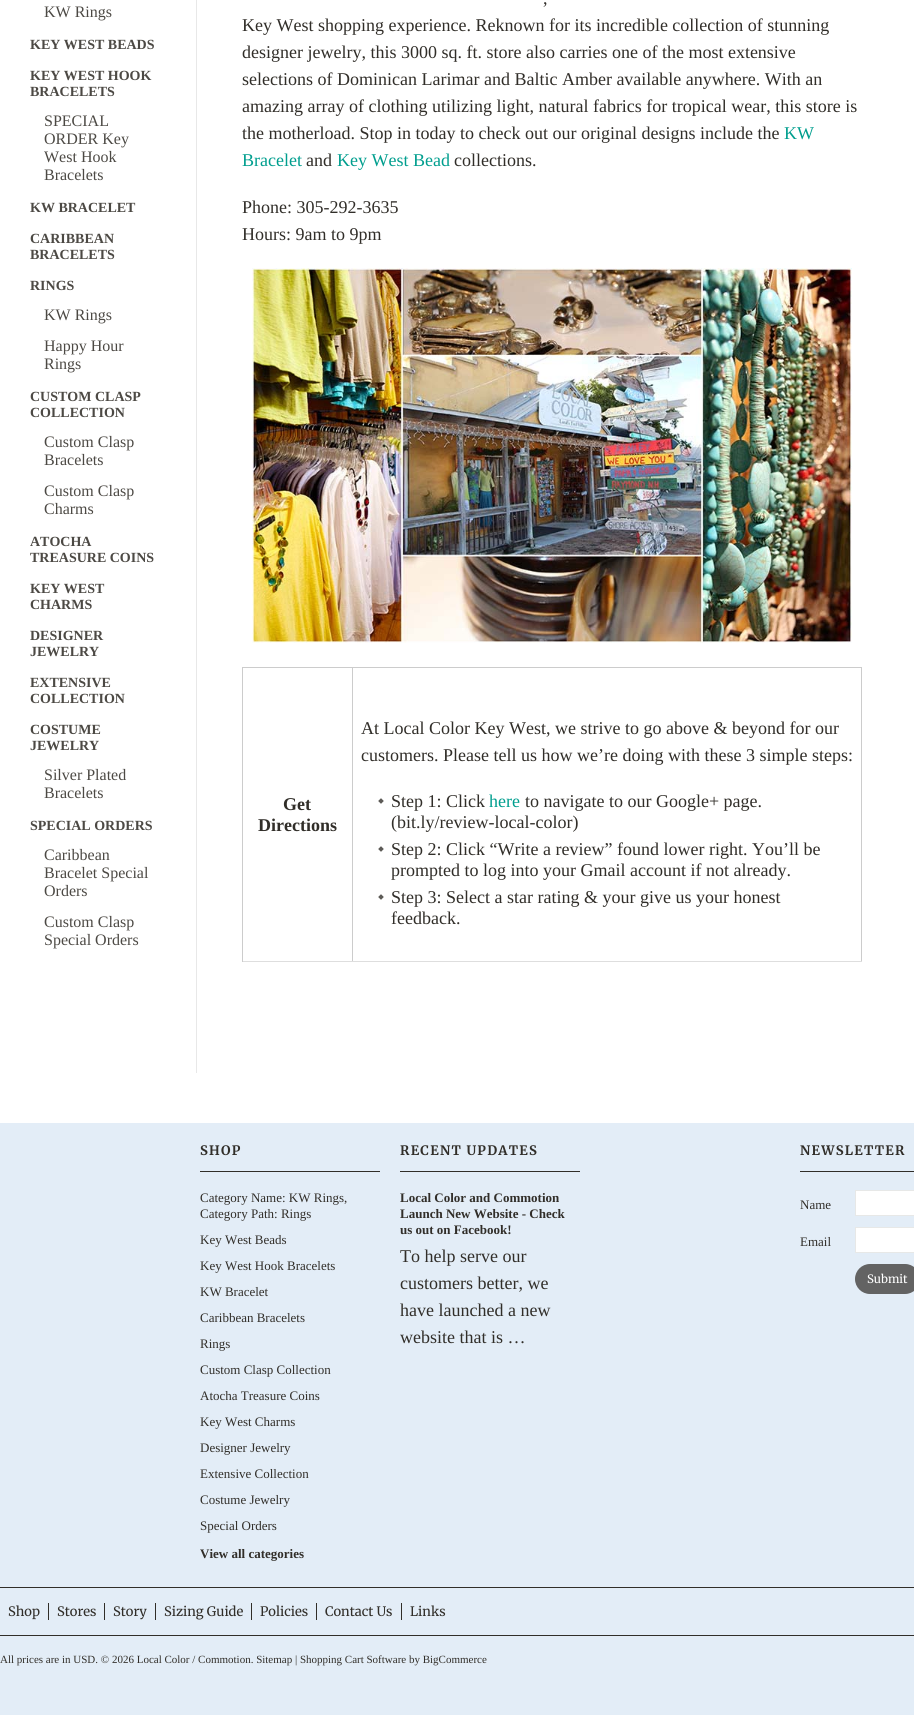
#include <cairo.h>
#include <math.h>
#include <stddef.h>


static void spaced_text(cairo_t *cr, double x, double y, const char *s, double letter, double word) {
    cairo_move_to(cr, x, y);
    while (*s) {
        char ch[5] = {0};
        int n = 0;
        do ch[n++] = *s++; while ((*s & 0xC0) == 0x80);
        cairo_show_text(cr, ch);
        cairo_rel_move_to(cr, letter + word * (*ch == ' '), 0);
    }
}

static void round_rect(cairo_t *cr, double x, double y, double w, double h, double r) {
    cairo_new_sub_path(cr);
    cairo_arc(cr, x + w - r, y + h - r, r, 0, M_PI / 2);
    cairo_arc(cr, x + r, y + h - r, r, M_PI / 2, M_PI);
    cairo_arc(cr, x + r, y + r, r, M_PI, 1.5 * M_PI);
    cairo_arc(cr, x + w - r, y + r, r, 1.5 * M_PI, 2 * M_PI);
    cairo_close_path(cr);
}

static void picture(cairo_t *cr, const char *path, double x, double y, double w, double h) {
    cairo_surface_t *image = cairo_image_surface_create_from_png(path);
    cairo_save(cr);
    cairo_set_source_surface(cr, image, x, y);
    cairo_rectangle(cr, x, y, w, h);
    cairo_fill(cr);
    cairo_restore(cr);
    cairo_surface_destroy(image);
}

int main(void) {
    cairo_surface_t *surface = cairo_image_surface_create(CAIRO_FORMAT_RGB24, 914, 1715);
    cairo_t *cr = cairo_create(surface);
    cairo_font_options_t *options = cairo_font_options_create();
    cairo_font_options_set_hint_metrics(options, CAIRO_HINT_METRICS_OFF);
    cairo_font_options_set_hint_style(options, CAIRO_HINT_STYLE_NONE);
    cairo_set_font_options(cr, options);
    cairo_set_miter_limit(cr, 4);
    cairo_set_source_rgb(cr, 0.89, 0.929, 0.965);
    cairo_paint(cr);
    cairo_set_source_rgb(cr, 1, 1, 1);
    cairo_rectangle(cr, 0, 0, 914, 1123);
    cairo_fill(cr);
    cairo_select_font_face(cr, "Liberation Serif", CAIRO_FONT_SLANT_NORMAL, CAIRO_FONT_WEIGHT_NORMAL);
    cairo_set_font_size(cr, 16);
    cairo_set_source_rgb(cr, 0.298, 0.286, 0.267);
    cairo_move_to(cr, 44, 17);
    cairo_show_text(cr, "KW Rings");
    cairo_select_font_face(cr, "Liberation Serif", CAIRO_FONT_SLANT_NORMAL, CAIRO_FONT_WEIGHT_BOLD);
    cairo_set_font_size(cr, 14);
    cairo_move_to(cr, 30, 49);
    cairo_show_text(cr, "KEY WEST BEADS");
    cairo_move_to(cr, 30, 80);
    cairo_show_text(cr, "KEY WEST HOOK");
    cairo_move_to(cr, 30, 96);
    cairo_show_text(cr, "BRACELETS");
    cairo_select_font_face(cr, "Liberation Serif", CAIRO_FONT_SLANT_NORMAL, CAIRO_FONT_WEIGHT_NORMAL);
    cairo_set_font_size(cr, 16);
    cairo_move_to(cr, 44, 126);
    cairo_show_text(cr, "SPECIAL");
    cairo_move_to(cr, 44, 144);
    cairo_show_text(cr, "ORDER Key");
    cairo_move_to(cr, 44, 162);
    cairo_show_text(cr, "West Hook");
    cairo_move_to(cr, 44, 180);
    cairo_show_text(cr, "Bracelets");
    cairo_select_font_face(cr, "Liberation Serif", CAIRO_FONT_SLANT_NORMAL, CAIRO_FONT_WEIGHT_BOLD);
    cairo_set_font_size(cr, 14);
    cairo_move_to(cr, 30, 212);
    cairo_show_text(cr, "KW BRACELET");
    cairo_move_to(cr, 30, 243);
    cairo_show_text(cr, "CARIBBEAN");
    cairo_move_to(cr, 30, 259);
    cairo_show_text(cr, "BRACELETS");
    cairo_move_to(cr, 30, 290);
    cairo_show_text(cr, "RINGS");
    cairo_select_font_face(cr, "Liberation Serif", CAIRO_FONT_SLANT_NORMAL, CAIRO_FONT_WEIGHT_NORMAL);
    cairo_set_font_size(cr, 16);
    cairo_move_to(cr, 44, 320);
    cairo_show_text(cr, "KW Rings");
    cairo_move_to(cr, 44, 351);
    cairo_show_text(cr, "Happy Hour");
    cairo_move_to(cr, 44, 369);
    cairo_show_text(cr, "Rings");
    cairo_select_font_face(cr, "Liberation Serif", CAIRO_FONT_SLANT_NORMAL, CAIRO_FONT_WEIGHT_BOLD);
    cairo_set_font_size(cr, 14);
    cairo_move_to(cr, 30, 401);
    cairo_show_text(cr, "CUSTOM CLASP");
    cairo_move_to(cr, 30, 417);
    cairo_show_text(cr, "COLLECTION");
    cairo_select_font_face(cr, "Liberation Serif", CAIRO_FONT_SLANT_NORMAL, CAIRO_FONT_WEIGHT_NORMAL);
    cairo_set_font_size(cr, 16);
    cairo_move_to(cr, 44, 447);
    cairo_show_text(cr, "Custom Clasp");
    cairo_move_to(cr, 44, 465);
    cairo_show_text(cr, "Bracelets");
    cairo_move_to(cr, 44, 496);
    cairo_show_text(cr, "Custom Clasp");
    cairo_move_to(cr, 44, 514);
    cairo_show_text(cr, "Charms");
    cairo_select_font_face(cr, "Liberation Serif", CAIRO_FONT_SLANT_NORMAL, CAIRO_FONT_WEIGHT_BOLD);
    cairo_set_font_size(cr, 14);
    cairo_move_to(cr, 30, 546);
    cairo_show_text(cr, "ATOCHA");
    cairo_move_to(cr, 30, 562);
    cairo_show_text(cr, "TREASURE COINS");
    cairo_move_to(cr, 30, 593);
    cairo_show_text(cr, "KEY WEST");
    cairo_move_to(cr, 30, 609);
    cairo_show_text(cr, "CHARMS");
    cairo_move_to(cr, 30, 640);
    cairo_show_text(cr, "DESIGNER");
    cairo_move_to(cr, 30, 656);
    cairo_show_text(cr, "JEWELRY");
    cairo_move_to(cr, 30, 687);
    cairo_show_text(cr, "EXTENSIVE");
    cairo_move_to(cr, 30, 703);
    cairo_show_text(cr, "COLLECTION");
    cairo_move_to(cr, 30, 734);
    cairo_show_text(cr, "COSTUME");
    cairo_move_to(cr, 30, 750);
    cairo_show_text(cr, "JEWELRY");
    cairo_select_font_face(cr, "Liberation Serif", CAIRO_FONT_SLANT_NORMAL, CAIRO_FONT_WEIGHT_NORMAL);
    cairo_set_font_size(cr, 16);
    cairo_move_to(cr, 44, 780);
    cairo_show_text(cr, "Silver Plated");
    cairo_move_to(cr, 44, 798);
    cairo_show_text(cr, "Bracelets");
    cairo_select_font_face(cr, "Liberation Serif", CAIRO_FONT_SLANT_NORMAL, CAIRO_FONT_WEIGHT_BOLD);
    cairo_set_font_size(cr, 14);
    cairo_move_to(cr, 30, 830);
    cairo_show_text(cr, "SPECIAL ORDERS");
    cairo_select_font_face(cr, "Liberation Serif", CAIRO_FONT_SLANT_NORMAL, CAIRO_FONT_WEIGHT_NORMAL);
    cairo_set_font_size(cr, 16);
    cairo_move_to(cr, 44, 860);
    cairo_show_text(cr, "Caribbean");
    cairo_move_to(cr, 44, 878);
    cairo_show_text(cr, "Bracelet Special");
    cairo_move_to(cr, 44, 896);
    cairo_show_text(cr, "Orders");
    cairo_move_to(cr, 44, 927);
    cairo_show_text(cr, "Custom Clasp");
    cairo_move_to(cr, 44, 945);
    cairo_show_text(cr, "Special Orders");
    cairo_set_source_rgb(cr, 0.91, 0.91, 0.91);
    cairo_rectangle(cr, 196, 0, 1, 1073);
    cairo_fill(cr);
    cairo_set_font_size(cr, 18);
    cairo_set_source_rgb(cr, 0.192, 0.18, 0.161);
    cairo_move_to(cr, 543, 4);
    cairo_show_text(cr, ",");
    cairo_move_to(cr, 242, 31);
    cairo_show_text(cr, "Key West shopping experience. Reknown for its incredible collection of stunning");
    cairo_move_to(cr, 242, 58);
    cairo_show_text(cr, "designer jewelry, this 3000 sq. ft. store also carries one of the most extensive");
    cairo_move_to(cr, 242, 85);
    cairo_show_text(cr, "selections of Dominican Larimar and Baltic Amber available anywhere. With an");
    cairo_move_to(cr, 242, 112);
    cairo_show_text(cr, "amazing array of clothing utilizing light, natural fabrics for tropical wear, this store is");
    cairo_move_to(cr, 242, 139);
    cairo_show_text(cr, "the motherload. Stop in today to check out our original designs include the");
    cairo_set_source_rgb(cr, 0, 0.62, 0.557);
    cairo_move_to(cr, 784, 139);
    cairo_show_text(cr, "KW");
    cairo_move_to(cr, 242, 166);
    cairo_show_text(cr, "Bracelet");
    cairo_set_source_rgb(cr, 0.192, 0.18, 0.161);
    cairo_move_to(cr, 306, 166);
    cairo_show_text(cr, "and");
    cairo_set_source_rgb(cr, 0, 0.62, 0.557);
    cairo_move_to(cr, 337, 166);
    cairo_show_text(cr, "Key West Bead");
    cairo_set_source_rgb(cr, 0.192, 0.18, 0.161);
    cairo_move_to(cr, 454, 166);
    cairo_show_text(cr, "collections.");
    cairo_move_to(cr, 242, 213);
    cairo_show_text(cr, "Phone: 305-292-3635");
    cairo_move_to(cr, 242, 240);
    cairo_show_text(cr, "Hours: 9am to 9pm");
    picture(cr, "img1.png", 252, 268, 600, 375);
    cairo_set_source_rgb(cr, 0.8, 0.8, 0.8);
    cairo_rectangle(cr, 352, 667, 510, 1);
    cairo_fill(cr);
    cairo_rectangle(cr, 861, 667, 1, 295);
    cairo_fill(cr);
    cairo_set_source_rgb(cr, 0.871, 0.871, 0.871);
    cairo_rectangle(cr, 352, 961, 510, 1);
    cairo_fill(cr);
    cairo_set_source_rgb(cr, 0.8, 0.8, 0.8);
    cairo_rectangle(cr, 352, 667, 1, 295);
    cairo_fill(cr);
    cairo_rectangle(cr, 242, 667, 111, 1);
    cairo_fill(cr);
    cairo_set_source_rgb(cr, 0.871, 0.871, 0.871);
    cairo_rectangle(cr, 242, 961, 111, 1);
    cairo_fill(cr);
    cairo_set_source_rgb(cr, 0.8, 0.8, 0.8);
    cairo_rectangle(cr, 242, 667, 1, 295);
    cairo_fill(cr);
    cairo_select_font_face(cr, "Liberation Serif", CAIRO_FONT_SLANT_NORMAL, CAIRO_FONT_WEIGHT_BOLD);
    cairo_set_source_rgb(cr, 0.192, 0.18, 0.161);
    cairo_move_to(cr, 283, 810);
    cairo_show_text(cr, "Get");
    cairo_move_to(cr, 258, 831);
    cairo_show_text(cr, "Directions");
    cairo_select_font_face(cr, "Liberation Serif", CAIRO_FONT_SLANT_NORMAL, CAIRO_FONT_WEIGHT_NORMAL);
    cairo_move_to(cr, 361, 734);
    cairo_show_text(cr, "At Local Color Key West, we strive to go above & beyond for our");
    cairo_move_to(cr, 361, 761);
    cairo_show_text(cr, "customers. Please tell us how we’re doing with these 3 simple steps:");
    picture(cr, "img2.png", 378, 798, 6, 6);
    cairo_move_to(cr, 391, 807);
    cairo_show_text(cr, "Step 1: Click");
    cairo_set_source_rgb(cr, 0, 0.62, 0.557);
    cairo_move_to(cr, 489, 807);
    cairo_show_text(cr, "here");
    cairo_set_source_rgb(cr, 0.192, 0.18, 0.161);
    cairo_move_to(cr, 525, 807);
    cairo_show_text(cr, "to navigate to our Google+ page.");
    cairo_move_to(cr, 391, 828);
    cairo_show_text(cr, "(bit.ly/review-local-color)");
    picture(cr, "img2.png", 378, 846, 6, 6);
    cairo_move_to(cr, 391, 855);
    cairo_show_text(cr, "Step 2: Click “Write a review” found lower right. You’ll be");
    cairo_move_to(cr, 391, 876);
    cairo_show_text(cr, "prompted to log into your Gmail account if not already.");
    picture(cr, "img2.png", 378, 894, 6, 6);
    cairo_move_to(cr, 391, 903);
    cairo_show_text(cr, "Step 3: Select a star rating & your give us your honest");
    cairo_move_to(cr, 391, 924);
    cairo_show_text(cr, "feedback.");
    cairo_rectangle(cr, 200, 1171, 180, 1);
    cairo_fill(cr);
    cairo_select_font_face(cr, "Merriweather", CAIRO_FONT_SLANT_NORMAL, CAIRO_FONT_WEIGHT_BOLD);
    cairo_set_font_size(cr, 13);
    spaced_text(cr, 200, 1155, "SHOP", 1.25, 0);
    cairo_select_font_face(cr, "Liberation Serif", CAIRO_FONT_SLANT_NORMAL, CAIRO_FONT_WEIGHT_NORMAL);
    cairo_move_to(cr, 200, 1202);
    cairo_show_text(cr, "Category Name: KW Rings,");
    cairo_move_to(cr, 200, 1218);
    cairo_show_text(cr, "Category Path: Rings");
    cairo_move_to(cr, 200, 1244);
    cairo_show_text(cr, "Key West Beads");
    cairo_move_to(cr, 200, 1270);
    cairo_show_text(cr, "Key West Hook Bracelets");
    cairo_move_to(cr, 200, 1296);
    cairo_show_text(cr, "KW Bracelet");
    cairo_move_to(cr, 200, 1322);
    cairo_show_text(cr, "Caribbean Bracelets");
    cairo_move_to(cr, 200, 1348);
    cairo_show_text(cr, "Rings");
    cairo_move_to(cr, 200, 1374);
    cairo_show_text(cr, "Custom Clasp Collection");
    cairo_move_to(cr, 200, 1400);
    cairo_show_text(cr, "Atocha Treasure Coins");
    cairo_move_to(cr, 200, 1426);
    cairo_show_text(cr, "Key West Charms");
    cairo_move_to(cr, 200, 1452);
    cairo_show_text(cr, "Designer Jewelry");
    cairo_move_to(cr, 200, 1478);
    cairo_show_text(cr, "Extensive Collection");
    cairo_move_to(cr, 200, 1504);
    cairo_show_text(cr, "Costume Jewelry");
    cairo_move_to(cr, 200, 1530);
    cairo_show_text(cr, "Special Orders");
    cairo_select_font_face(cr, "Liberation Serif", CAIRO_FONT_SLANT_NORMAL, CAIRO_FONT_WEIGHT_BOLD);
    cairo_move_to(cr, 200, 1558);
    cairo_show_text(cr, "View all categories");
    cairo_rectangle(cr, 400, 1171, 180, 1);
    cairo_fill(cr);
    cairo_select_font_face(cr, "Merriweather", CAIRO_FONT_SLANT_NORMAL, CAIRO_FONT_WEIGHT_BOLD);
    spaced_text(cr, 400, 1155, "RECENT UPDATES", 1.25, 0);
    cairo_select_font_face(cr, "Liberation Serif", CAIRO_FONT_SLANT_NORMAL, CAIRO_FONT_WEIGHT_BOLD);
    cairo_move_to(cr, 400, 1202);
    cairo_show_text(cr, "Local Color and Commotion");
    cairo_move_to(cr, 400, 1218);
    cairo_show_text(cr, "Launch New Website - Check");
    cairo_move_to(cr, 400, 1234);
    cairo_show_text(cr, "us out on Facebook!");
    cairo_select_font_face(cr, "Liberation Serif", CAIRO_FONT_SLANT_NORMAL, CAIRO_FONT_WEIGHT_NORMAL);
    cairo_set_font_size(cr, 18);
    cairo_move_to(cr, 400, 1262);
    cairo_show_text(cr, "To help serve our");
    cairo_move_to(cr, 400, 1289);
    cairo_show_text(cr, "customers better, we");
    cairo_move_to(cr, 400, 1316);
    cairo_show_text(cr, "have launched a new");
    cairo_move_to(cr, 400, 1343);
    cairo_show_text(cr, "website that is …");
    cairo_rectangle(cr, 800, 1171, 114, 1);
    cairo_fill(cr);
    cairo_select_font_face(cr, "Merriweather", CAIRO_FONT_SLANT_NORMAL, CAIRO_FONT_WEIGHT_BOLD);
    cairo_set_font_size(cr, 13);
    spaced_text(cr, 800, 1155, "NEWSLETTER", 1.25, 0);
    cairo_select_font_face(cr, "Liberation Serif", CAIRO_FONT_SLANT_NORMAL, CAIRO_FONT_WEIGHT_NORMAL);
    cairo_move_to(cr, 800, 1209);
    cairo_show_text(cr, "Name");
    cairo_set_source_rgb(cr, 1, 1, 1);
    cairo_rectangle(cr, 855.5, 1190.5, 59, 25);
    cairo_fill_preserve(cr);
    cairo_set_source_rgb(cr, 0.906, 0.91, 0.906);
    cairo_set_line_width(cr, 1);
    cairo_stroke(cr);
    cairo_set_source_rgb(cr, 0.192, 0.18, 0.161);
    cairo_move_to(cr, 800, 1246);
    cairo_show_text(cr, "Email");
    cairo_set_source_rgb(cr, 1, 1, 1);
    cairo_rectangle(cr, 855.5, 1227.5, 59, 25);
    cairo_fill_preserve(cr);
    cairo_set_source_rgb(cr, 0.906, 0.91, 0.906);
    cairo_stroke(cr);
    cairo_set_source_rgb(cr, 0.388, 0.388, 0.388);
    round_rect(cr, 855, 1264, 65, 30, 15);
    cairo_fill(cr);
    cairo_select_font_face(cr, "Merriweather", CAIRO_FONT_SLANT_NORMAL, CAIRO_FONT_WEIGHT_NORMAL);
    cairo_set_font_size(cr, 11.5);
    cairo_set_source_rgb(cr, 1, 1, 1);
    cairo_move_to(cr, 867, 1283);
    cairo_show_text(cr, "Submit");
    cairo_set_source_rgb(cr, 0.192, 0.18, 0.161);
    cairo_rectangle(cr, 0, 1587, 914, 1);
    cairo_fill(cr);
    cairo_rectangle(cr, 0, 1635, 914, 1);
    cairo_fill(cr);
    cairo_set_font_size(cr, 13);
    cairo_move_to(cr, 8, 1616);
    cairo_show_text(cr, "Shop");
    cairo_rectangle(cr, 48, 1603, 1, 17);
    cairo_fill(cr);
    cairo_move_to(cr, 57, 1616);
    cairo_show_text(cr, "Stores");
    cairo_rectangle(cr, 104, 1603, 1, 17);
    cairo_fill(cr);
    cairo_move_to(cr, 113, 1616);
    cairo_show_text(cr, "Story");
    cairo_rectangle(cr, 155, 1603, 1, 17);
    cairo_fill(cr);
    cairo_move_to(cr, 164, 1616);
    cairo_show_text(cr, "Sizing Guide");
    cairo_rectangle(cr, 251, 1603, 1, 17);
    cairo_fill(cr);
    cairo_move_to(cr, 260, 1616);
    cairo_show_text(cr, "Policies");
    cairo_rectangle(cr, 316, 1603, 1, 17);
    cairo_fill(cr);
    cairo_move_to(cr, 325, 1616);
    cairo_show_text(cr, "Contact Us");
    cairo_rectangle(cr, 401, 1603, 1, 17);
    cairo_fill(cr);
    cairo_move_to(cr, 410, 1616);
    cairo_show_text(cr, "Links");
    cairo_select_font_face(cr, "Liberation Serif", CAIRO_FONT_SLANT_NORMAL, CAIRO_FONT_WEIGHT_NORMAL);
    cairo_set_font_size(cr, 11);
    cairo_move_to(cr, 0, 1663);
    cairo_show_text(cr, "All prices are in USD. © 2026 Local Color / Commotion. Sitemap | Shopping Cart Software by BigCommerce");
    cairo_surface_write_to_png(surface, "page.png");
    cairo_font_options_destroy(options);
    cairo_destroy(cr);
    cairo_surface_destroy(surface);
    return 0;
}
